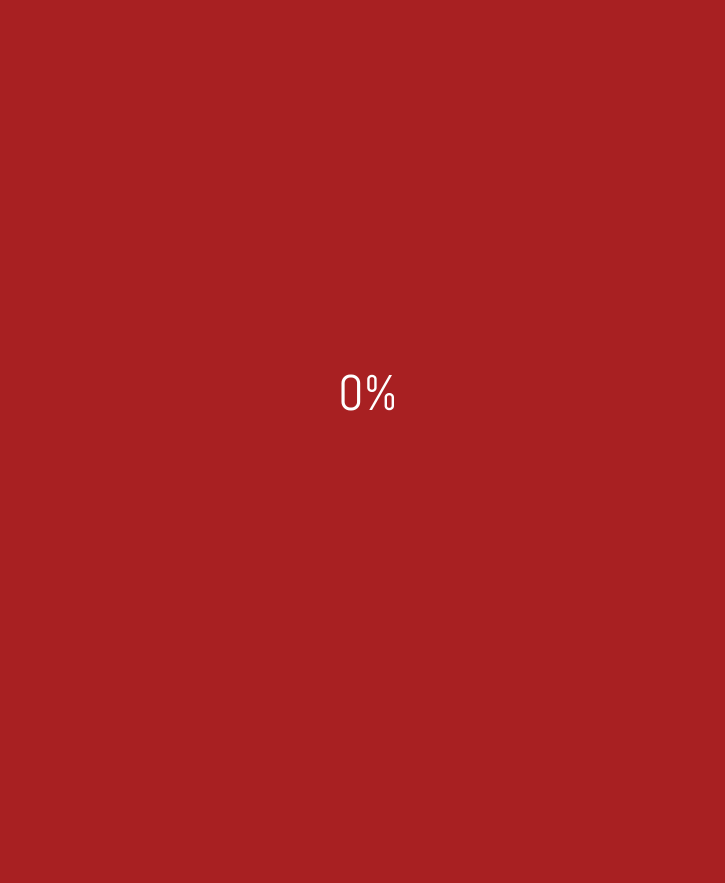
#include <cairo.h>
#include <math.h>
#include <stddef.h>


int main(void) {
    cairo_surface_t *surface = cairo_image_surface_create(CAIRO_FORMAT_RGB24, 725, 883);
    cairo_t *cr = cairo_create(surface);
    cairo_font_options_t *options = cairo_font_options_create();
    cairo_font_options_set_hint_metrics(options, CAIRO_HINT_METRICS_OFF);
    cairo_font_options_set_hint_style(options, CAIRO_HINT_STYLE_NONE);
    cairo_set_font_options(cr, options);
    cairo_set_miter_limit(cr, 4);
    cairo_set_source_rgb(cr, 0.659, 0.125, 0.133);
    cairo_paint(cr);
    cairo_select_font_face(cr, "Abel", CAIRO_FONT_SLANT_NORMAL, CAIRO_FONT_WEIGHT_NORMAL);
    cairo_set_font_size(cr, 50);
    cairo_set_source_rgb(cr, 1, 1, 1);
    cairo_move_to(cr, 338, 410);
    cairo_show_text(cr, "0%");
    cairo_surface_write_to_png(surface, "page.png");
    cairo_font_options_destroy(options);
    cairo_destroy(cr);
    cairo_surface_destroy(surface);
    return 0;
}
